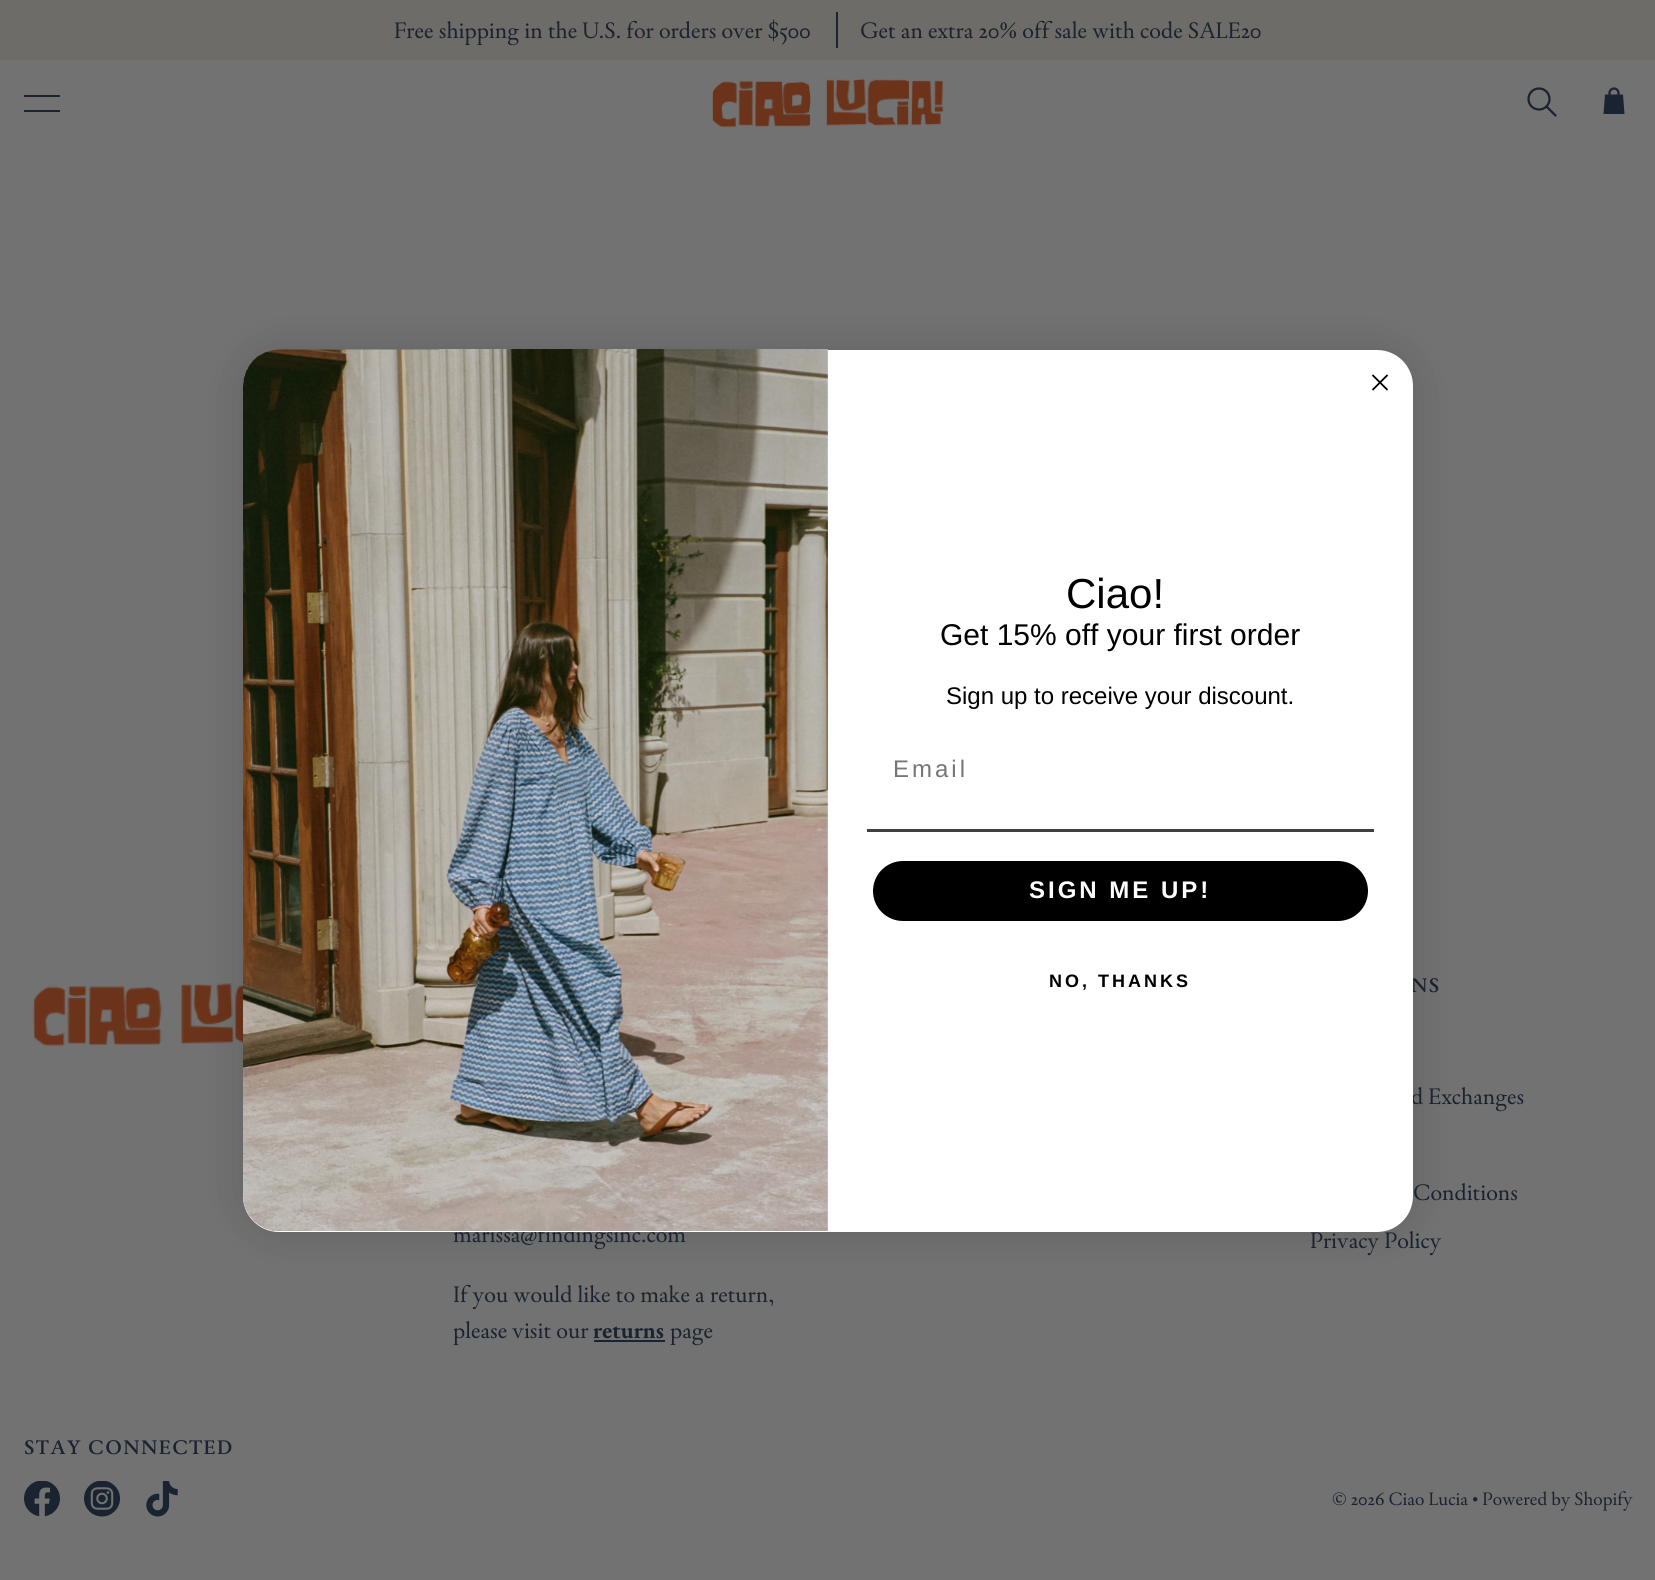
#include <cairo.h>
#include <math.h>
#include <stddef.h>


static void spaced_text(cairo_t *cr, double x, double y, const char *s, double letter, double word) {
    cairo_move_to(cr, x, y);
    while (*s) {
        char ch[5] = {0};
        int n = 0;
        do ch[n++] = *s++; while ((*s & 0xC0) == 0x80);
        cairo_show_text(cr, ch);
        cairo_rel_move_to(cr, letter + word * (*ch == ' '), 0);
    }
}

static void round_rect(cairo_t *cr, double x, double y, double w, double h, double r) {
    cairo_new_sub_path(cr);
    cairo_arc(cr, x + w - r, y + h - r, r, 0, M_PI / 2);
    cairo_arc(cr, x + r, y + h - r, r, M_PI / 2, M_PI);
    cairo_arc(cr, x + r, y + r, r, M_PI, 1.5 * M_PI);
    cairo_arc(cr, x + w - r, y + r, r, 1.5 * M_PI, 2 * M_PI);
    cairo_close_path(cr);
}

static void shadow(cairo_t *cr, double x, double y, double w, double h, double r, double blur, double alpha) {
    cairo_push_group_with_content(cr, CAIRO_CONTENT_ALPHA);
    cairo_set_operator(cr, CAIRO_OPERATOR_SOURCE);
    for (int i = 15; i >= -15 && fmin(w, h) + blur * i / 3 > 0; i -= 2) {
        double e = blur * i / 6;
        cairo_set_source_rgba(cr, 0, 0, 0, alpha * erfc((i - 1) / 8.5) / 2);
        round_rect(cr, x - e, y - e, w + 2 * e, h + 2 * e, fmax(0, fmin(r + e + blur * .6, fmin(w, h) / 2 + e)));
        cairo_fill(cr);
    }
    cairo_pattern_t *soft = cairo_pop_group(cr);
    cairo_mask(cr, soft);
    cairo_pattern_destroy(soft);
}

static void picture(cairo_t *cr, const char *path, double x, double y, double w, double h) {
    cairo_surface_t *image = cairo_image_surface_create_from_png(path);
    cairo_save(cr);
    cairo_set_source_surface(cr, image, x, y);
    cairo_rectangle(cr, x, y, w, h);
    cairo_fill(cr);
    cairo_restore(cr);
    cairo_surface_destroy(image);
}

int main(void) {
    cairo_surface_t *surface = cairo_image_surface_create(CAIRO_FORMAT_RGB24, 1655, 1580);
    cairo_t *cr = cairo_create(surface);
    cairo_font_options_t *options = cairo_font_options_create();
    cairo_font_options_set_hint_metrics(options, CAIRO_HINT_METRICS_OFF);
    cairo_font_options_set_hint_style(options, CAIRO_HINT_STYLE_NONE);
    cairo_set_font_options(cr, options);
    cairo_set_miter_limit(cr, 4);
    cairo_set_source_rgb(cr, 0.447, 0.447, 0.447);
    cairo_paint(cr);
    cairo_set_source_rgb(cr, 0.427, 0.424, 0.408);
    cairo_rectangle(cr, 0, 0, 1655, 60);
    cairo_fill(cr);
    cairo_set_source_rgb(cr, 0.102, 0.137, 0.188);
    cairo_rectangle(cr, 836, 12, 2, 36);
    cairo_fill(cr);
    cairo_select_font_face(cr, "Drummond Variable", CAIRO_FONT_SLANT_NORMAL, CAIRO_FONT_WEIGHT_NORMAL);
    cairo_set_font_size(cr, 24);
    cairo_move_to(cr, 394, 38);
    cairo_show_text(cr, "Free shipping in the U.S. for orders over $500");
    cairo_move_to(cr, 860, 38);
    cairo_show_text(cr, "Get an extra 20% off sale with code SALE20");
    cairo_rectangle(cr, 24, 95, 36, 2);
    cairo_fill(cr);
    cairo_rectangle(cr, 24, 110, 36, 2);
    cairo_fill(cr);
    picture(cr, "img1.png", 712, 78, 232, 50);
    picture(cr, "img2.png", 1527, 87, 30, 30);
    picture(cr, "img3.png", 1603, 87, 22, 27);
    picture(cr, "img5.png", 32, 983, 211, 64);
    cairo_set_source_rgb(cr, 0, 0, 0);
    shadow(cr, 243, 350, 1170, 882, 36, 22.5, 0.15);
    cairo_select_font_face(cr, "Drummond Variable SemiBold", CAIRO_FONT_SLANT_NORMAL, CAIRO_FONT_WEIGHT_NORMAL);
    cairo_set_font_size(cr, 21);
    cairo_set_source_rgb(cr, 0.102, 0.137, 0.188);
    spaced_text(cr, 1411, 992, "NS", 1.5, 0);
    cairo_select_font_face(cr, "Drummond Variable", CAIRO_FONT_SLANT_NORMAL, CAIRO_FONT_WEIGHT_NORMAL);
    cairo_set_font_size(cr, 24);
    cairo_move_to(cr, 1411, 1104);
    cairo_show_text(cr, "d Exchanges");
    cairo_move_to(cr, 1310, 1248);
    cairo_show_text(cr, "Privacy Policy");
    cairo_move_to(cr, 453, 1242);
    cairo_show_text(cr, "marissa@findingsinc.com");
    cairo_set_source_rgb(cr, 1, 1, 1);
    round_rect(cr, 243, 350, 1170, 882, 36);
    cairo_fill(cr);
    cairo_new_path(cr);
    cairo_move_to(cr, 1373, 375.5);
    cairo_line_to(cr, 1387, 389.5);
    cairo_move_to(cr, 1373, 389.5);
    cairo_line_to(cr, 1387, 375.5);
    cairo_close_path(cr);
    cairo_set_source_rgb(cr, 0, 0, 0);
    cairo_set_line_width(cr, 1.8);
    cairo_set_line_cap(cr, CAIRO_LINE_CAP_ROUND);
    cairo_set_line_join(cr, CAIRO_LINE_JOIN_ROUND);
    cairo_stroke(cr);
    picture(cr, "img4.png", 243, 349, 585, 882);
    cairo_select_font_face(cr, "Liberation Sans", CAIRO_FONT_SLANT_NORMAL, CAIRO_FONT_WEIGHT_NORMAL);
    cairo_set_font_size(cr, 42);
    cairo_move_to(cr, 1066, 608);
    cairo_show_text(cr, "Ciao!");
    cairo_set_font_size(cr, 30);
    cairo_move_to(cr, 940, 645);
    cairo_show_text(cr, "Get 15% off your first order");
    cairo_set_font_size(cr, 24);
    cairo_move_to(cr, 946, 704);
    cairo_show_text(cr, "Sign up to receive your discount.");
    cairo_set_source_rgb(cr, 0.463, 0.463, 0.463);
    spaced_text(cr, 893, 777, "Email", 3, 0);
    cairo_set_source_rgb(cr, 0.251, 0.251, 0.251);
    cairo_rectangle(cr, 867, 829, 507, 3);
    cairo_fill(cr);
    cairo_set_source_rgb(cr, 0, 0, 0);
    round_rect(cr, 873, 861, 495, 60, 30);
    cairo_fill(cr);
    cairo_select_font_face(cr, "Liberation Sans", CAIRO_FONT_SLANT_NORMAL, CAIRO_FONT_WEIGHT_BOLD);
    cairo_set_source_rgb(cr, 1, 1, 1);
    spaced_text(cr, 1029, 898, "SIGN ME UP!", 3, 0);
    cairo_set_font_size(cr, 18);
    cairo_set_source_rgb(cr, 0, 0, 0);
    spaced_text(cr, 1049, 987, "NO, THANKS", 3, 0);
    cairo_select_font_face(cr, "Drummond Variable", CAIRO_FONT_SLANT_NORMAL, CAIRO_FONT_WEIGHT_NORMAL);
    cairo_set_font_size(cr, 24);
    cairo_set_source_rgb(cr, 0.102, 0.137, 0.188);
    cairo_move_to(cr, 1413, 1200);
    cairo_show_text(cr, "Conditions");
    cairo_move_to(cr, 453, 1302);
    cairo_show_text(cr, "If you would like to make a return,");
    cairo_move_to(cr, 453, 1338);
    cairo_show_text(cr, "please visit our");
    cairo_select_font_face(cr, "Drummond Variable", CAIRO_FONT_SLANT_NORMAL, CAIRO_FONT_WEIGHT_BOLD);
    cairo_move_to(cr, 593, 1338);
    cairo_show_text(cr, "returns");
    cairo_rectangle(cr, 594, 1340, 71, 2);
    cairo_fill(cr);
    cairo_select_font_face(cr, "Drummond Variable", CAIRO_FONT_SLANT_NORMAL, CAIRO_FONT_WEIGHT_NORMAL);
    cairo_move_to(cr, 670, 1338);
    cairo_show_text(cr, "page");
    cairo_select_font_face(cr, "Drummond Variable SemiBold", CAIRO_FONT_SLANT_NORMAL, CAIRO_FONT_WEIGHT_NORMAL);
    cairo_set_font_size(cr, 21);
    spaced_text(cr, 24, 1454, "STAY CONNECTED", 1.5, 0);
    picture(cr, "img6.png", 24, 1481, 36, 36);
    picture(cr, "img7.png", 84, 1481, 36, 36);
    picture(cr, "img8.png", 146, 1481, 32, 36);
    cairo_select_font_face(cr, "Drummond Variable", CAIRO_FONT_SLANT_NORMAL, CAIRO_FONT_WEIGHT_NORMAL);
    cairo_set_font_size(cr, 19.25);
    cairo_move_to(cr, 1332, 1505);
    cairo_show_text(cr, "© 2026 Ciao Lucia • Powered by Shopify");
    cairo_surface_write_to_png(surface, "page.png");
    cairo_font_options_destroy(options);
    cairo_destroy(cr);
    cairo_surface_destroy(surface);
    return 0;
}
